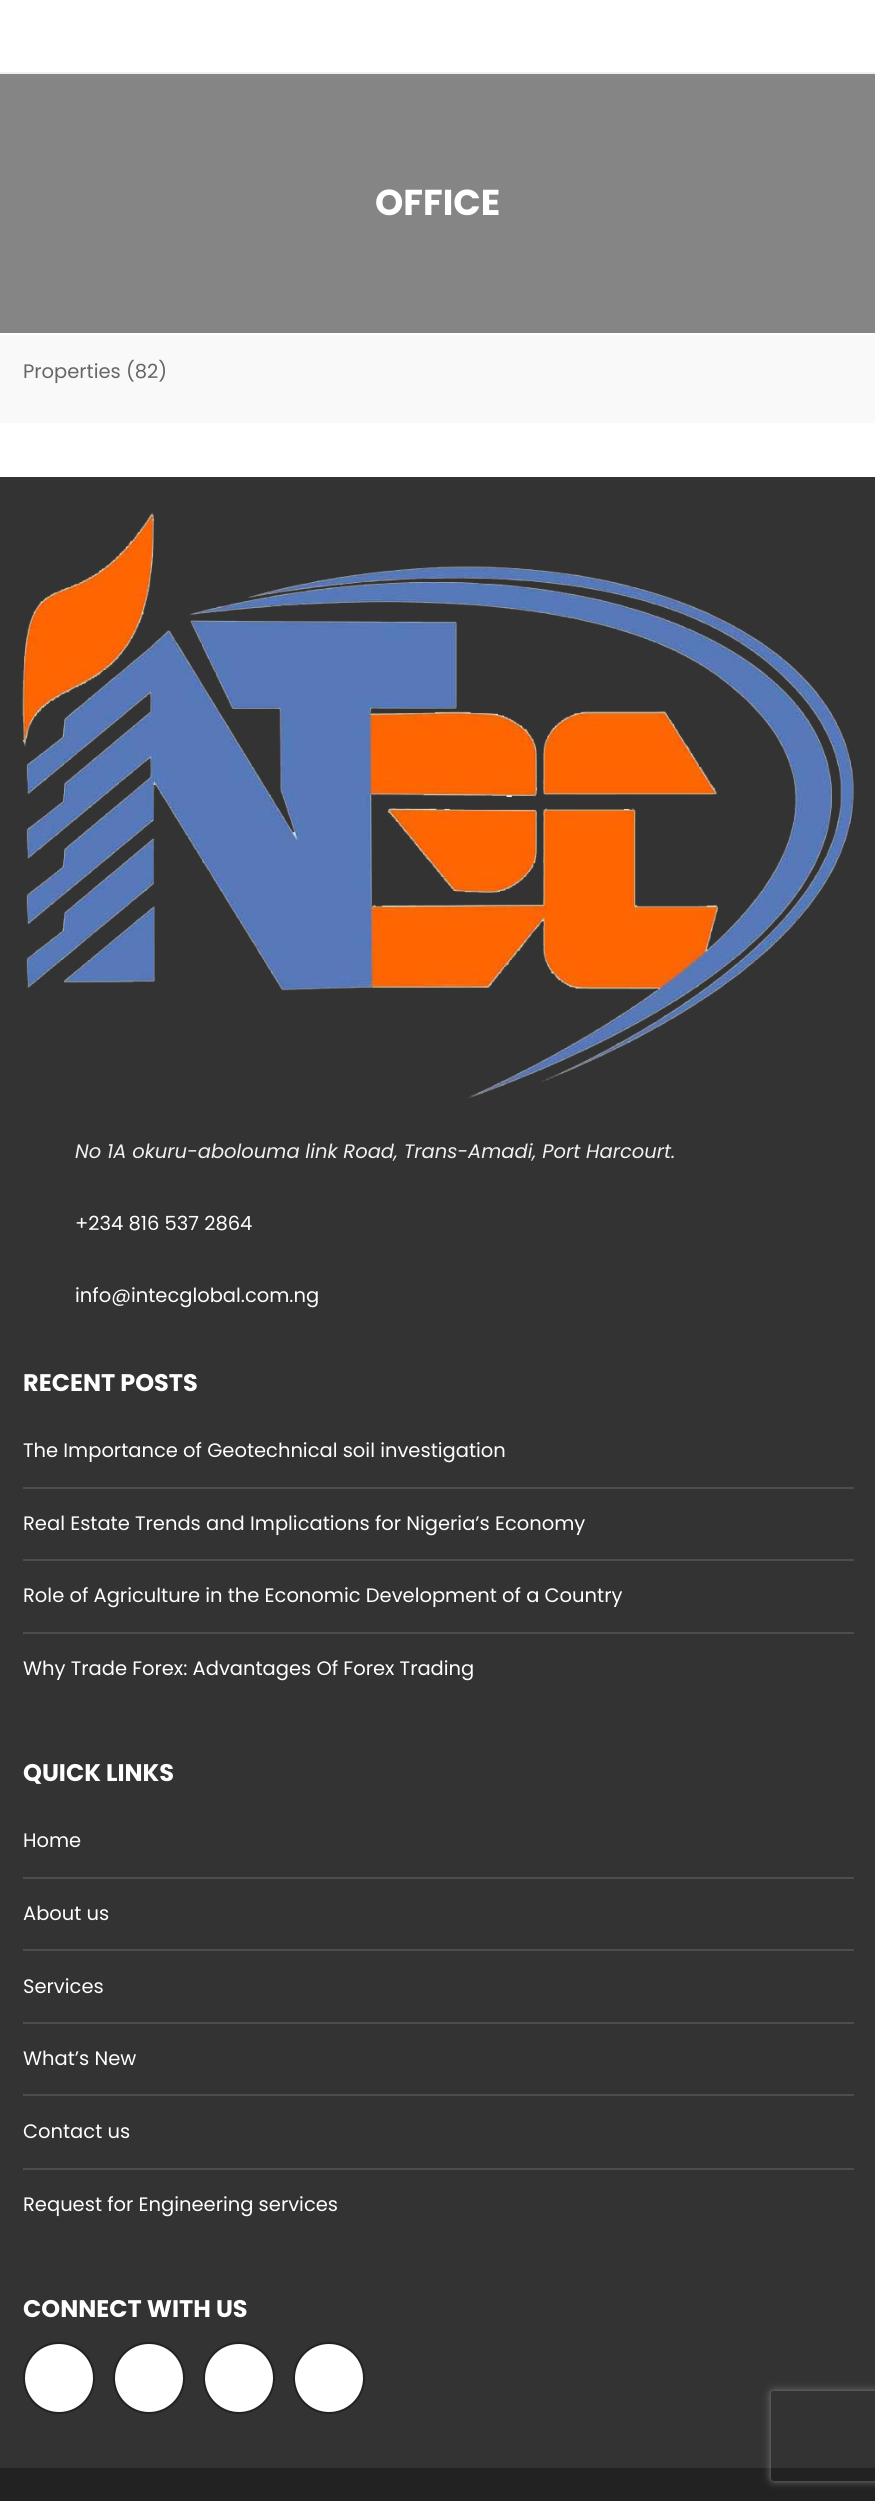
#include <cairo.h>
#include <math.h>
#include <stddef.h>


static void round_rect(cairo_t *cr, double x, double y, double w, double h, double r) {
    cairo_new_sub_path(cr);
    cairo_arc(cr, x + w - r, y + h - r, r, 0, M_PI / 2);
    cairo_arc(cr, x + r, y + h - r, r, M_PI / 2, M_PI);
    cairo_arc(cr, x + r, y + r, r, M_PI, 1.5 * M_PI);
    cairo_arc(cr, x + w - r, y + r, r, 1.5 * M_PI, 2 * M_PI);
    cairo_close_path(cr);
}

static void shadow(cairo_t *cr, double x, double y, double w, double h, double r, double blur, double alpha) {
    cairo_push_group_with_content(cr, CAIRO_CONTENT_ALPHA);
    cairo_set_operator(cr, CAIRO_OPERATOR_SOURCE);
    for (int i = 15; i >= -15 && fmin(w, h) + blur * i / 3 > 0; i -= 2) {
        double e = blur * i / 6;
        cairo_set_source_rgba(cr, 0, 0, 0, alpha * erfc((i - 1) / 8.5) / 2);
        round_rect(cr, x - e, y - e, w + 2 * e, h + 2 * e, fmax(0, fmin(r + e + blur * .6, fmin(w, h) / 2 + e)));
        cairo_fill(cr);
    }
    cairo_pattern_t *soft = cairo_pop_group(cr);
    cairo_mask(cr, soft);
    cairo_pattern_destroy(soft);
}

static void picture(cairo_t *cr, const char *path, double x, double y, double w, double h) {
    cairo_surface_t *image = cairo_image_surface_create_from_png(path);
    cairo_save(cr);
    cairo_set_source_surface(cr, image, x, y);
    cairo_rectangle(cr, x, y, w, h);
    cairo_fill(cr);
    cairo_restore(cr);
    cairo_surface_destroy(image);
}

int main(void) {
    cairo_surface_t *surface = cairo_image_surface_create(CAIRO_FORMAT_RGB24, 875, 2501);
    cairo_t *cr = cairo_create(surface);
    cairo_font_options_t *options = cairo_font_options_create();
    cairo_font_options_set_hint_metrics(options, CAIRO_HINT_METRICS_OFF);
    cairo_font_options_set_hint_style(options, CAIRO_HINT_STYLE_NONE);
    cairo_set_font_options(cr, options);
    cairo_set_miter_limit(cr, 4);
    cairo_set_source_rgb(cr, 1, 1, 1);
    cairo_paint(cr);
    cairo_set_source_rgb(cr, 0.941, 0.941, 0.941);
    cairo_rectangle(cr, 0, 72, 875, 2);
    cairo_fill(cr);
    cairo_set_source_rgb(cr, 0.522, 0.522, 0.522);
    cairo_rectangle(cr, 0, 74, 875, 259);
    cairo_fill(cr);
    cairo_select_font_face(cr, "Poppins", CAIRO_FONT_SLANT_NORMAL, CAIRO_FONT_WEIGHT_BOLD);
    cairo_set_font_size(cr, 36);
    cairo_set_source_rgb(cr, 1, 1, 1);
    cairo_move_to(cr, 375, 215);
    cairo_show_text(cr, "OFFICE");
    cairo_set_source_rgb(cr, 0.976, 0.976, 0.976);
    cairo_rectangle(cr, 0, 335, 875, 88);
    cairo_fill(cr);
    cairo_select_font_face(cr, "Poppins", CAIRO_FONT_SLANT_NORMAL, CAIRO_FONT_WEIGHT_NORMAL);
    cairo_set_font_size(cr, 19.5);
    cairo_set_source_rgb(cr, 0.4, 0.4, 0.4);
    cairo_move_to(cr, 23, 378);
    cairo_show_text(cr, "Properties (82)");
    cairo_set_source_rgb(cr, 0.2, 0.2, 0.2);
    cairo_rectangle(cr, 0, 477, 875, 1991);
    cairo_fill(cr);
    picture(cr, "img1.png", 22, 513, 832, 585);
    cairo_select_font_face(cr, "Poppins", CAIRO_FONT_SLANT_ITALIC, CAIRO_FONT_WEIGHT_NORMAL);
    cairo_set_source_rgb(cr, 0.941, 0.941, 0.941);
    cairo_move_to(cr, 75, 1158);
    cairo_show_text(cr, "No 1A okuru-abolouma link Road, Trans-Amadi, Port Harcourt.");
    cairo_select_font_face(cr, "Poppins", CAIRO_FONT_SLANT_NORMAL, CAIRO_FONT_WEIGHT_NORMAL);
    cairo_set_source_rgb(cr, 1, 1, 1);
    cairo_move_to(cr, 75, 1230);
    cairo_show_text(cr, "+234 816 537 2864");
    cairo_move_to(cr, 75, 1302);
    cairo_show_text(cr, "info@intecglobal.com.ng");
    cairo_select_font_face(cr, "Poppins", CAIRO_FONT_SLANT_NORMAL, CAIRO_FONT_WEIGHT_BOLD);
    cairo_set_font_size(cr, 24);
    cairo_move_to(cr, 23, 1391);
    cairo_show_text(cr, "RECENT POSTS");
    cairo_set_source_rgb(cr, 0.302, 0.302, 0.302);
    cairo_rectangle(cr, 23, 1487, 831, 2);
    cairo_fill(cr);
    cairo_select_font_face(cr, "Poppins", CAIRO_FONT_SLANT_NORMAL, CAIRO_FONT_WEIGHT_NORMAL);
    cairo_set_font_size(cr, 19.5);
    cairo_set_source_rgb(cr, 1, 1, 1);
    cairo_move_to(cr, 23, 1457);
    cairo_show_text(cr, "The Importance of Geotechnical soil investigation");
    cairo_set_source_rgb(cr, 0.302, 0.302, 0.302);
    cairo_rectangle(cr, 23, 1559, 831, 2);
    cairo_fill(cr);
    cairo_set_source_rgb(cr, 1, 1, 1);
    cairo_move_to(cr, 23, 1530);
    cairo_show_text(cr, "Real Estate Trends and Implications for Nigeria’s Economy");
    cairo_set_source_rgb(cr, 0.302, 0.302, 0.302);
    cairo_rectangle(cr, 23, 1632, 831, 2);
    cairo_fill(cr);
    cairo_set_source_rgb(cr, 1, 1, 1);
    cairo_move_to(cr, 23, 1602);
    cairo_show_text(cr, "Role of Agriculture in the Economic Development of a Country");
    cairo_move_to(cr, 23, 1675);
    cairo_show_text(cr, "Why Trade Forex: Advantages Of Forex Trading");
    cairo_select_font_face(cr, "Poppins", CAIRO_FONT_SLANT_NORMAL, CAIRO_FONT_WEIGHT_BOLD);
    cairo_set_font_size(cr, 24);
    cairo_move_to(cr, 23, 1781);
    cairo_show_text(cr, "QUICK LINKS");
    cairo_set_source_rgb(cr, 0.302, 0.302, 0.302);
    cairo_rectangle(cr, 23, 1877, 831, 2);
    cairo_fill(cr);
    cairo_select_font_face(cr, "Poppins", CAIRO_FONT_SLANT_NORMAL, CAIRO_FONT_WEIGHT_NORMAL);
    cairo_set_font_size(cr, 19.5);
    cairo_set_source_rgb(cr, 1, 1, 1);
    cairo_move_to(cr, 23, 1847);
    cairo_show_text(cr, "Home");
    cairo_set_source_rgb(cr, 0.302, 0.302, 0.302);
    cairo_rectangle(cr, 23, 1949, 831, 2);
    cairo_fill(cr);
    cairo_set_source_rgb(cr, 1, 1, 1);
    cairo_move_to(cr, 23, 1920);
    cairo_show_text(cr, "About us");
    cairo_set_source_rgb(cr, 0.302, 0.302, 0.302);
    cairo_rectangle(cr, 23, 2022, 831, 2);
    cairo_fill(cr);
    cairo_set_source_rgb(cr, 1, 1, 1);
    cairo_move_to(cr, 23, 1993);
    cairo_show_text(cr, "Services");
    cairo_set_source_rgb(cr, 0.302, 0.302, 0.302);
    cairo_rectangle(cr, 23, 2094, 831, 2);
    cairo_fill(cr);
    cairo_set_source_rgb(cr, 1, 1, 1);
    cairo_move_to(cr, 23, 2065);
    cairo_show_text(cr, "What’s New");
    cairo_set_source_rgb(cr, 0.302, 0.302, 0.302);
    cairo_rectangle(cr, 23, 2168, 831, 2);
    cairo_fill(cr);
    cairo_set_source_rgb(cr, 1, 1, 1);
    cairo_move_to(cr, 23, 2138);
    cairo_show_text(cr, "Contact us");
    cairo_move_to(cr, 23, 2211);
    cairo_show_text(cr, "Request for Engineering services");
    cairo_select_font_face(cr, "Poppins", CAIRO_FONT_SLANT_NORMAL, CAIRO_FONT_WEIGHT_BOLD);
    cairo_set_font_size(cr, 24);
    cairo_move_to(cr, 23, 2317);
    cairo_show_text(cr, "CONNECT WITH US");
    cairo_new_path(cr);
    cairo_arc(cr, 59, 2378, 35, 0, 2 * M_PI);
    cairo_fill_preserve(cr);
    cairo_set_source_rgb(cr, 0.133, 0.133, 0.133);
    cairo_stroke(cr);
    cairo_set_source_rgb(cr, 1, 1, 1);
    cairo_arc(cr, 149, 2378, 35, 0, 2 * M_PI);
    cairo_fill_preserve(cr);
    cairo_set_source_rgb(cr, 0.133, 0.133, 0.133);
    cairo_stroke(cr);
    cairo_set_source_rgb(cr, 1, 1, 1);
    cairo_arc(cr, 239, 2378, 35, 0, 2 * M_PI);
    cairo_fill_preserve(cr);
    cairo_set_source_rgb(cr, 0.133, 0.133, 0.133);
    cairo_stroke(cr);
    cairo_set_source_rgb(cr, 1, 1, 1);
    cairo_arc(cr, 329, 2378, 35, 0, 2 * M_PI);
    cairo_fill_preserve(cr);
    cairo_set_source_rgb(cr, 0.133, 0.133, 0.133);
    cairo_stroke(cr);
    cairo_rectangle(cr, 0, 2468, 875, 33);
    cairo_fill(cr);
    cairo_save(cr);
    cairo_set_fill_rule(cr, CAIRO_FILL_RULE_EVEN_ODD);
    cairo_new_path(cr);
    cairo_move_to(cr, 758, 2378);
    cairo_line_to(cr, 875, 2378);
    cairo_line_to(cr, 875, 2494);
    cairo_line_to(cr, 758, 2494);
    cairo_close_path(cr);
    cairo_move_to(cr, 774, 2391);
    cairo_line_to(cr, 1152, 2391);
    cairo_curve_to(cr, 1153.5, 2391, 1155, 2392.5, 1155, 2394);
    cairo_line_to(cr, 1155, 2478);
    cairo_curve_to(cr, 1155, 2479.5, 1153.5, 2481, 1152, 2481);
    cairo_line_to(cr, 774, 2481);
    cairo_curve_to(cr, 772.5, 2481, 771, 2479.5, 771, 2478);
    cairo_line_to(cr, 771, 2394);
    cairo_curve_to(cr, 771, 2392.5, 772.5, 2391, 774, 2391);
    cairo_close_path(cr);
    cairo_clip(cr);
    cairo_set_source_rgb(cr, 0.502, 0.502, 0.502);
    shadow(cr, 771, 2391, 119, 90, 3, 4, 1);
    cairo_restore(cr);
    cairo_surface_write_to_png(surface, "page.png");
    cairo_font_options_destroy(options);
    cairo_destroy(cr);
    cairo_surface_destroy(surface);
    return 0;
}
